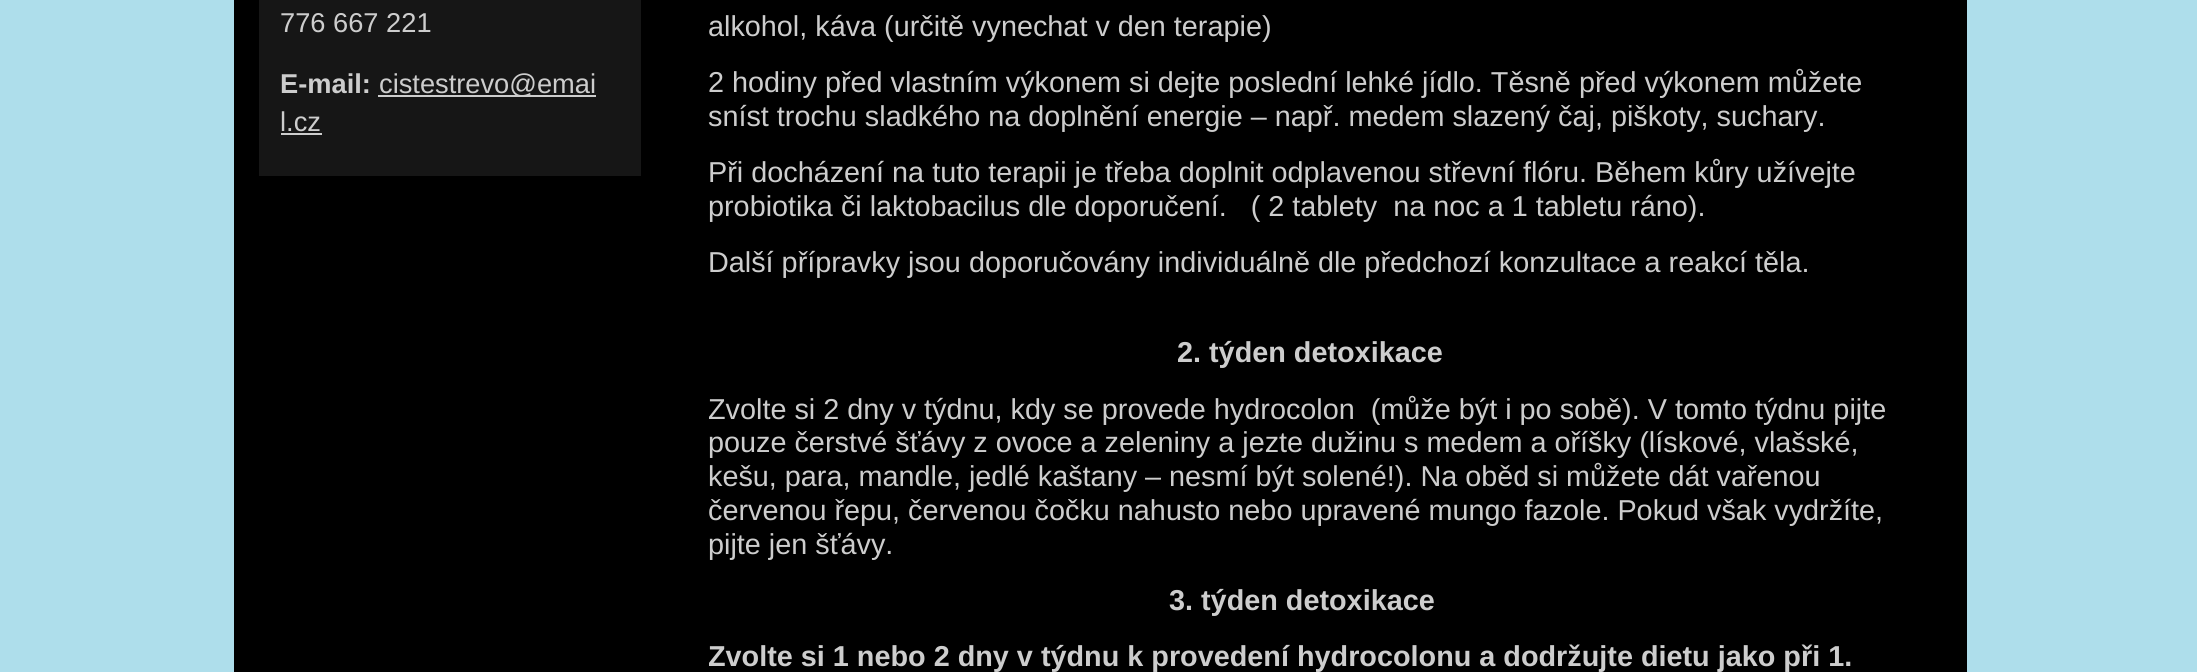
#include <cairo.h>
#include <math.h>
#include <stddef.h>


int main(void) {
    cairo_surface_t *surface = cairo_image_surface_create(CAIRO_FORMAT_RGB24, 2197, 672);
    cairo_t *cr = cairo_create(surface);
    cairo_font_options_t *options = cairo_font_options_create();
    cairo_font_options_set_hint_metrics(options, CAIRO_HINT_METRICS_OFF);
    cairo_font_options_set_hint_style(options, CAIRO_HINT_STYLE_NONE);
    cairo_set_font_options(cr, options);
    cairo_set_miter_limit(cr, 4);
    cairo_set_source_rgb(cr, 0.682, 0.871, 0.918);
    cairo_paint(cr);
    cairo_set_source_rgb(cr, 0, 0, 0);
    cairo_rectangle(cr, 234, 0, 1733, 672);
    cairo_fill(cr);
    cairo_set_source_rgb(cr, 0.086, 0.086, 0.086);
    cairo_rectangle(cr, 259, 0, 382, 176);
    cairo_fill(cr);
    cairo_select_font_face(cr, "Liberation Sans", CAIRO_FONT_SLANT_NORMAL, CAIRO_FONT_WEIGHT_NORMAL);
    cairo_set_font_size(cr, 27.25);
    cairo_set_source_rgb(cr, 0.804, 0.804, 0.804);
    cairo_move_to(cr, 280, 32);
    cairo_show_text(cr, "776 667 221");
    cairo_select_font_face(cr, "Liberation Sans", CAIRO_FONT_SLANT_NORMAL, CAIRO_FONT_WEIGHT_BOLD);
    cairo_move_to(cr, 280, 93);
    cairo_show_text(cr, "E-mail:");
    cairo_rectangle(cr, 378, 95, 218, 2);
    cairo_fill(cr);
    cairo_select_font_face(cr, "Liberation Sans", CAIRO_FONT_SLANT_NORMAL, CAIRO_FONT_WEIGHT_NORMAL);
    cairo_move_to(cr, 379, 93);
    cairo_show_text(cr, "cistestrevo@emai");
    cairo_move_to(cr, 280, 131);
    cairo_show_text(cr, "l.cz");
    cairo_rectangle(cr, 281, 133, 41, 2);
    cairo_fill(cr);
    cairo_set_font_size(cr, 28.8);
    cairo_move_to(cr, 708, 36);
    cairo_show_text(cr, "alkohol, káva (určitě vynechat v den terapie)");
    cairo_move_to(cr, 708, 92);
    cairo_show_text(cr, "2 hodiny před vlastním výkonem si dejte poslední lehké jídlo. Těsně před výkonem můžete");
    cairo_move_to(cr, 708, 126);
    cairo_show_text(cr, "sníst trochu sladkého na doplnění energie – např. medem slazený čaj, piškoty, suchary.");
    cairo_move_to(cr, 708, 182);
    cairo_show_text(cr, "Při docházení na tuto terapii je třeba doplnit odplavenou střevní flóru. Během kůry užívejte");
    cairo_move_to(cr, 708, 216);
    cairo_show_text(cr, "probiotika či laktobacilus dle doporučení.   ( 2 tablety  na noc a 1 tabletu ráno).");
    cairo_move_to(cr, 708, 272);
    cairo_show_text(cr, "Další přípravky jsou doporučovány individuálně dle předchozí konzultace a reakcí těla.");
    cairo_select_font_face(cr, "Liberation Sans", CAIRO_FONT_SLANT_NORMAL, CAIRO_FONT_WEIGHT_BOLD);
    cairo_move_to(cr, 1177, 362);
    cairo_show_text(cr, "2. týden detoxikace");
    cairo_save(cr);
    cairo_rectangle(cr, 709, 380, 1188, 192);
    cairo_clip(cr);
    cairo_select_font_face(cr, "Liberation Sans", CAIRO_FONT_SLANT_NORMAL, CAIRO_FONT_WEIGHT_NORMAL);
    cairo_move_to(cr, 708, 419);
    cairo_show_text(cr, "Zvolte si 2 dny v týdnu, kdy se provede hydrocolon  (může být i po sobě). V tomto týdnu pijte");
    cairo_restore(cr);
    cairo_select_font_face(cr, "Liberation Sans", CAIRO_FONT_SLANT_NORMAL, CAIRO_FONT_WEIGHT_NORMAL);
    cairo_move_to(cr, 708, 452);
    cairo_show_text(cr, "pouze čerstvé šťávy z ovoce a zeleniny a jezte dužinu s medem a oříšky (lískové, vlašské,");
    cairo_move_to(cr, 708, 486);
    cairo_show_text(cr, "kešu, para, mandle, jedlé kaštany – nesmí být solené!). Na oběd si můžete dát vařenou");
    cairo_save(cr);
    cairo_rectangle(cr, 709, 380, 1188, 192);
    cairo_clip(cr);
    cairo_move_to(cr, 708, 520);
    cairo_show_text(cr, "červenou řepu, červenou čočku nahusto nebo upravené mungo fazole. Pokud však vydržíte,");
    cairo_restore(cr);
    cairo_move_to(cr, 708, 554);
    cairo_show_text(cr, "pijte jen šťávy.");
    cairo_select_font_face(cr, "Liberation Sans", CAIRO_FONT_SLANT_NORMAL, CAIRO_FONT_WEIGHT_BOLD);
    cairo_move_to(cr, 1169, 610);
    cairo_show_text(cr, "3. týden detoxikace");
    cairo_save(cr);
    cairo_rectangle(cr, 709, 628, 1188, 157);
    cairo_clip(cr);
    cairo_move_to(cr, 708, 666);
    cairo_show_text(cr, "Zvolte si 1 nebo 2 dny v týdnu k provedení hydrocolonu a dodržujte dietu jako při 1.");
    cairo_restore(cr);
    cairo_surface_write_to_png(surface, "page.png");
    cairo_font_options_destroy(options);
    cairo_destroy(cr);
    cairo_surface_destroy(surface);
    return 0;
}
